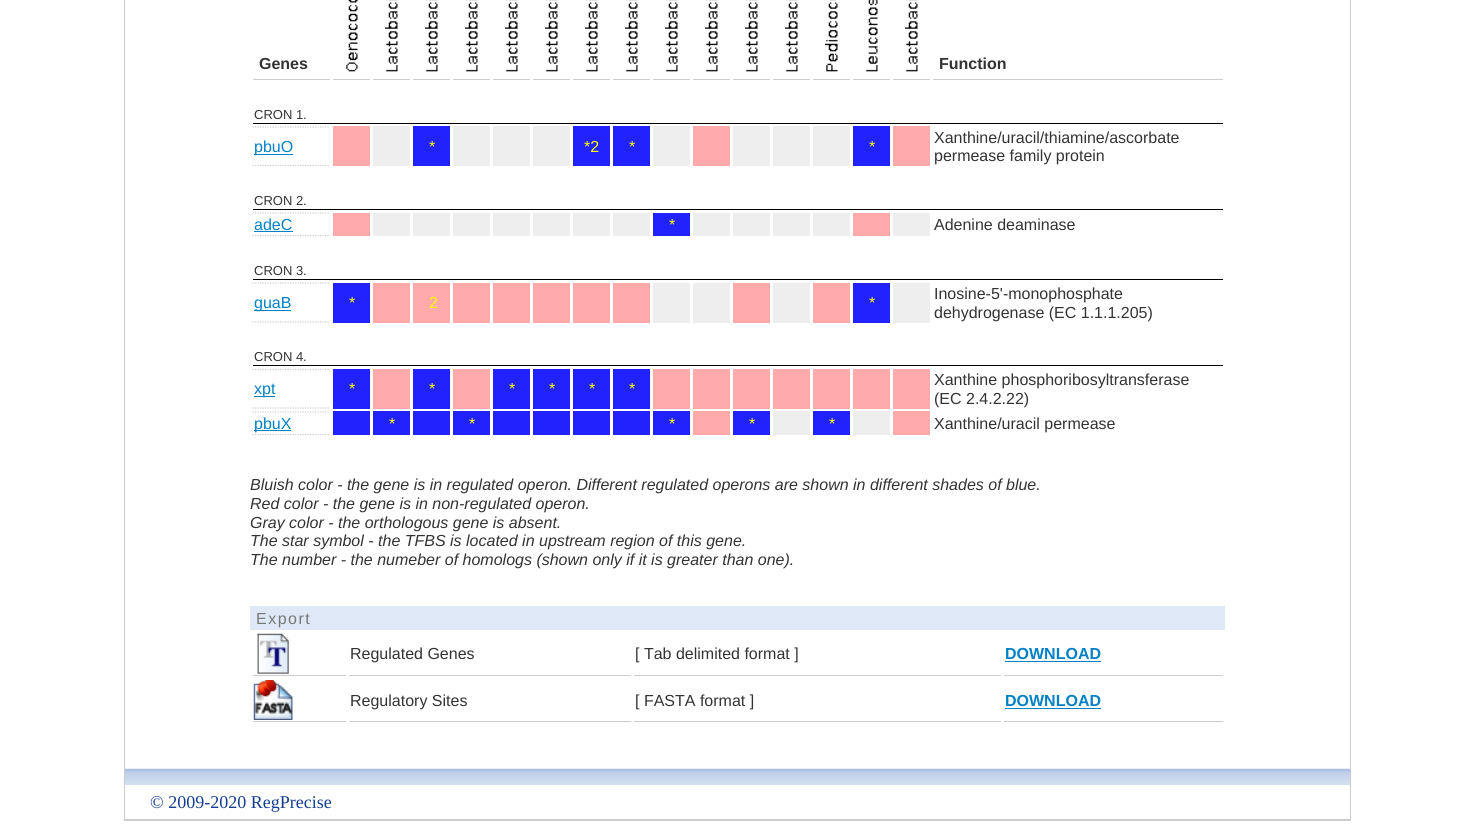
#include <cairo.h>
#include <math.h>
#include <stddef.h>


static void spaced_text(cairo_t *cr, double x, double y, const char *s, double letter, double word) {
    cairo_move_to(cr, x, y);
    while (*s) {
        char ch[5] = {0};
        int n = 0;
        do ch[n++] = *s++; while ((*s & 0xC0) == 0x80);
        cairo_show_text(cr, ch);
        cairo_rel_move_to(cr, letter + word * (*ch == ' '), 0);
    }
}

static void picture(cairo_t *cr, const char *path, double x, double y, double w, double h) {
    cairo_surface_t *image = cairo_image_surface_create_from_png(path);
    cairo_save(cr);
    cairo_set_source_surface(cr, image, x, y);
    cairo_rectangle(cr, x, y, w, h);
    cairo_fill(cr);
    cairo_restore(cr);
    cairo_surface_destroy(image);
}

int main(void) {
    cairo_surface_t *surface = cairo_image_surface_create(CAIRO_FORMAT_RGB24, 1474, 831);
    cairo_t *cr = cairo_create(surface);
    cairo_font_options_t *options = cairo_font_options_create();
    cairo_font_options_set_hint_metrics(options, CAIRO_HINT_METRICS_OFF);
    cairo_font_options_set_hint_style(options, CAIRO_HINT_STYLE_NONE);
    cairo_set_font_options(cr, options);
    cairo_set_miter_limit(cr, 4);
    cairo_set_source_rgb(cr, 1, 1, 1);
    cairo_paint(cr);
    cairo_rectangle(cr, 124.5, -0.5, 1226, 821);
    cairo_set_source_rgb(cr, 0.8, 0.8, 0.8);
    cairo_set_line_width(cr, 1);
    cairo_stroke(cr);
    cairo_rectangle(cr, 253, 79, 77, 1);
    cairo_fill(cr);
    cairo_select_font_face(cr, "Liberation Sans", CAIRO_FONT_SLANT_NORMAL, CAIRO_FONT_WEIGHT_BOLD);
    cairo_set_font_size(cr, 16);
    cairo_set_source_rgb(cr, 0.2, 0.2, 0.2);
    cairo_move_to(cr, 259, 69);
    cairo_show_text(cr, "Genes");
    cairo_set_source_rgb(cr, 0.8, 0.8, 0.8);
    cairo_rectangle(cr, 333, 79, 37, 1);
    cairo_fill(cr);
    picture(cr, "img1.png", 346, 0, 12, 72);
    cairo_rectangle(cr, 373, 79, 37, 1);
    cairo_fill(cr);
    picture(cr, "img2.png", 385, 0, 13, 72);
    cairo_rectangle(cr, 413, 79, 37, 1);
    cairo_fill(cr);
    picture(cr, "img3.png", 425, 0, 13, 72);
    cairo_rectangle(cr, 453, 79, 37, 1);
    cairo_fill(cr);
    picture(cr, "img3.png", 465, 0, 13, 72);
    cairo_rectangle(cr, 493, 79, 37, 1);
    cairo_fill(cr);
    picture(cr, "img4.png", 505, 0, 13, 72);
    cairo_rectangle(cr, 533, 79, 37, 1);
    cairo_fill(cr);
    picture(cr, "img3.png", 545, 0, 13, 72);
    cairo_rectangle(cr, 573, 79, 37, 1);
    cairo_fill(cr);
    picture(cr, "img3.png", 585, 0, 13, 72);
    cairo_rectangle(cr, 613, 79, 37, 1);
    cairo_fill(cr);
    picture(cr, "img2.png", 625, 0, 13, 72);
    cairo_rectangle(cr, 653, 79, 37, 1);
    cairo_fill(cr);
    picture(cr, "img2.png", 665, 0, 13, 72);
    cairo_rectangle(cr, 693, 79, 37, 1);
    cairo_fill(cr);
    picture(cr, "img3.png", 705, 0, 13, 72);
    cairo_rectangle(cr, 733, 79, 37, 1);
    cairo_fill(cr);
    picture(cr, "img3.png", 745, 0, 13, 72);
    cairo_rectangle(cr, 773, 79, 37, 1);
    cairo_fill(cr);
    picture(cr, "img2.png", 785, 0, 13, 72);
    cairo_rectangle(cr, 813, 79, 37, 1);
    cairo_fill(cr);
    picture(cr, "img5.png", 825, 0, 13, 72);
    cairo_rectangle(cr, 853, 79, 37, 1);
    cairo_fill(cr);
    picture(cr, "img6.png", 866, 0, 12, 72);
    cairo_rectangle(cr, 893, 79, 37, 1);
    cairo_fill(cr);
    picture(cr, "img2.png", 905, 0, 13, 72);
    cairo_rectangle(cr, 933, 79, 290, 1);
    cairo_fill(cr);
    cairo_set_source_rgb(cr, 0.2, 0.2, 0.2);
    cairo_move_to(cr, 939, 69);
    cairo_show_text(cr, "Function");
    cairo_set_source_rgb(cr, 0, 0, 0);
    cairo_rectangle(cr, 253, 123, 970, 1);
    cairo_fill(cr);
    cairo_select_font_face(cr, "Liberation Sans", CAIRO_FONT_SLANT_NORMAL, CAIRO_FONT_WEIGHT_NORMAL);
    cairo_set_font_size(cr, 13);
    cairo_set_source_rgb(cr, 0.2, 0.2, 0.2);
    cairo_move_to(cr, 254, 119);
    cairo_show_text(cr, "CRON 1.");
    cairo_new_path(cr);
    cairo_move_to(cr, 252.5, 127);
    cairo_line_to(cr, 330, 127);
    cairo_set_source_rgb(cr, 0.8, 0.8, 0.8);
    cairo_set_line_width(cr, 1.2);
    cairo_set_dash(cr, (double[]){1.25, 1.25}, 2, 0);
    cairo_stroke(cr);
    cairo_new_path(cr);
    cairo_move_to(cr, 252.5, 165.5);
    cairo_line_to(cr, 330, 165.5);
    cairo_stroke(cr);
    cairo_set_source_rgb(cr, 0, 0.506, 0.776);
    cairo_rectangle(cr, 254, 154, 39, 1);
    cairo_fill(cr);
    cairo_set_font_size(cr, 16);
    cairo_move_to(cr, 254, 152);
    cairo_show_text(cr, "pbuO");
    cairo_set_source_rgb(cr, 1, 0.667, 0.667);
    cairo_rectangle(cr, 333, 126, 37, 40);
    cairo_fill(cr);
    cairo_set_source_rgb(cr, 0.933, 0.933, 0.933);
    cairo_rectangle(cr, 373, 126, 37, 40);
    cairo_fill(cr);
    cairo_set_source_rgb(cr, 0.133, 0.133, 1);
    cairo_rectangle(cr, 413, 126, 37, 40);
    cairo_fill(cr);
    cairo_set_source_rgb(cr, 1, 1, 0);
    cairo_move_to(cr, 429, 152);
    cairo_show_text(cr, "*");
    cairo_set_source_rgb(cr, 0.933, 0.933, 0.933);
    cairo_rectangle(cr, 453, 126, 37, 40);
    cairo_fill(cr);
    cairo_rectangle(cr, 493, 126, 37, 40);
    cairo_fill(cr);
    cairo_rectangle(cr, 533, 126, 37, 40);
    cairo_fill(cr);
    cairo_set_source_rgb(cr, 0.133, 0.133, 1);
    cairo_rectangle(cr, 573, 126, 37, 40);
    cairo_fill(cr);
    cairo_set_source_rgb(cr, 1, 1, 0);
    cairo_move_to(cr, 584, 152);
    cairo_show_text(cr, "*2");
    cairo_set_source_rgb(cr, 0.133, 0.133, 1);
    cairo_rectangle(cr, 613, 126, 37, 40);
    cairo_fill(cr);
    cairo_set_source_rgb(cr, 1, 1, 0);
    cairo_move_to(cr, 629, 152);
    cairo_show_text(cr, "*");
    cairo_set_source_rgb(cr, 0.933, 0.933, 0.933);
    cairo_rectangle(cr, 653, 126, 37, 40);
    cairo_fill(cr);
    cairo_set_source_rgb(cr, 1, 0.667, 0.667);
    cairo_rectangle(cr, 693, 126, 37, 40);
    cairo_fill(cr);
    cairo_set_source_rgb(cr, 0.933, 0.933, 0.933);
    cairo_rectangle(cr, 733, 126, 37, 40);
    cairo_fill(cr);
    cairo_rectangle(cr, 773, 126, 37, 40);
    cairo_fill(cr);
    cairo_rectangle(cr, 813, 126, 37, 40);
    cairo_fill(cr);
    cairo_set_source_rgb(cr, 0.133, 0.133, 1);
    cairo_rectangle(cr, 853, 126, 37, 40);
    cairo_fill(cr);
    cairo_set_source_rgb(cr, 1, 1, 0);
    cairo_move_to(cr, 869, 152);
    cairo_show_text(cr, "*");
    cairo_set_source_rgb(cr, 1, 0.667, 0.667);
    cairo_rectangle(cr, 893, 126, 37, 40);
    cairo_fill(cr);
    cairo_set_source_rgb(cr, 0.2, 0.2, 0.2);
    cairo_move_to(cr, 934, 143);
    cairo_show_text(cr, "Xanthine/uracil/thiamine/ascorbate");
    cairo_move_to(cr, 934, 161);
    cairo_show_text(cr, "permease family protein");
    cairo_set_source_rgb(cr, 0, 0, 0);
    cairo_rectangle(cr, 253, 209, 970, 1);
    cairo_fill(cr);
    cairo_set_font_size(cr, 13);
    cairo_set_source_rgb(cr, 0.2, 0.2, 0.2);
    cairo_move_to(cr, 254, 205);
    cairo_show_text(cr, "CRON 2.");
    cairo_new_path(cr);
    cairo_move_to(cr, 252.5, 213);
    cairo_line_to(cr, 330, 213);
    cairo_set_source_rgb(cr, 0.8, 0.8, 0.8);
    cairo_stroke(cr);
    cairo_new_path(cr);
    cairo_move_to(cr, 252.5, 235.5);
    cairo_line_to(cr, 330, 235.5);
    cairo_stroke(cr);
    cairo_set_font_size(cr, 16);
    cairo_set_source_rgb(cr, 0, 0.506, 0.776);
    cairo_move_to(cr, 254, 230);
    cairo_show_text(cr, "adeC");
    cairo_rectangle(cr, 254, 231, 39, 1);
    cairo_fill(cr);
    cairo_set_source_rgb(cr, 1, 0.667, 0.667);
    cairo_rectangle(cr, 333, 213, 37, 23);
    cairo_fill(cr);
    cairo_set_source_rgb(cr, 0.933, 0.933, 0.933);
    cairo_rectangle(cr, 373, 213, 37, 23);
    cairo_fill(cr);
    cairo_rectangle(cr, 413, 213, 37, 23);
    cairo_fill(cr);
    cairo_rectangle(cr, 453, 213, 37, 23);
    cairo_fill(cr);
    cairo_rectangle(cr, 493, 213, 37, 23);
    cairo_fill(cr);
    cairo_rectangle(cr, 533, 213, 37, 23);
    cairo_fill(cr);
    cairo_rectangle(cr, 573, 213, 37, 23);
    cairo_fill(cr);
    cairo_rectangle(cr, 613, 213, 37, 23);
    cairo_fill(cr);
    cairo_set_source_rgb(cr, 0.133, 0.133, 1);
    cairo_rectangle(cr, 653, 213, 37, 23);
    cairo_fill(cr);
    cairo_set_source_rgb(cr, 1, 1, 0);
    cairo_move_to(cr, 669, 230);
    cairo_show_text(cr, "*");
    cairo_set_source_rgb(cr, 0.933, 0.933, 0.933);
    cairo_rectangle(cr, 693, 213, 37, 23);
    cairo_fill(cr);
    cairo_rectangle(cr, 733, 213, 37, 23);
    cairo_fill(cr);
    cairo_rectangle(cr, 773, 213, 37, 23);
    cairo_fill(cr);
    cairo_rectangle(cr, 813, 213, 37, 23);
    cairo_fill(cr);
    cairo_set_source_rgb(cr, 1, 0.667, 0.667);
    cairo_rectangle(cr, 853, 213, 37, 23);
    cairo_fill(cr);
    cairo_set_source_rgb(cr, 0.933, 0.933, 0.933);
    cairo_rectangle(cr, 893, 213, 37, 23);
    cairo_fill(cr);
    cairo_set_source_rgb(cr, 0.2, 0.2, 0.2);
    cairo_move_to(cr, 934, 230);
    cairo_show_text(cr, "Adenine deaminase");
    cairo_set_source_rgb(cr, 0, 0, 0);
    cairo_rectangle(cr, 253, 279, 970, 1);
    cairo_fill(cr);
    cairo_set_font_size(cr, 13);
    cairo_set_source_rgb(cr, 0.2, 0.2, 0.2);
    cairo_move_to(cr, 254, 275);
    cairo_show_text(cr, "CRON 3.");
    cairo_new_path(cr);
    cairo_move_to(cr, 252.5, 283);
    cairo_line_to(cr, 330, 283);
    cairo_set_source_rgb(cr, 0.8, 0.8, 0.8);
    cairo_stroke(cr);
    cairo_new_path(cr);
    cairo_move_to(cr, 252.5, 322);
    cairo_line_to(cr, 330, 322);
    cairo_stroke(cr);
    cairo_set_source_rgb(cr, 0, 0.506, 0.776);
    cairo_rectangle(cr, 254, 310, 37, 1);
    cairo_fill(cr);
    cairo_set_font_size(cr, 16);
    cairo_move_to(cr, 254, 308);
    cairo_show_text(cr, "guaB");
    cairo_set_source_rgb(cr, 0.133, 0.133, 1);
    cairo_rectangle(cr, 333, 283, 37, 40);
    cairo_fill(cr);
    cairo_set_source_rgb(cr, 1, 1, 0);
    cairo_move_to(cr, 349, 308);
    cairo_show_text(cr, "*");
    cairo_set_source_rgb(cr, 1, 0.667, 0.667);
    cairo_rectangle(cr, 373, 283, 37, 40);
    cairo_fill(cr);
    cairo_rectangle(cr, 413, 283, 37, 40);
    cairo_fill(cr);
    cairo_set_source_rgb(cr, 1, 1, 0);
    cairo_move_to(cr, 429, 308);
    cairo_show_text(cr, "2");
    cairo_set_source_rgb(cr, 1, 0.667, 0.667);
    cairo_rectangle(cr, 453, 283, 37, 40);
    cairo_fill(cr);
    cairo_rectangle(cr, 493, 283, 37, 40);
    cairo_fill(cr);
    cairo_rectangle(cr, 533, 283, 37, 40);
    cairo_fill(cr);
    cairo_rectangle(cr, 573, 283, 37, 40);
    cairo_fill(cr);
    cairo_rectangle(cr, 613, 283, 37, 40);
    cairo_fill(cr);
    cairo_set_source_rgb(cr, 0.933, 0.933, 0.933);
    cairo_rectangle(cr, 653, 283, 37, 40);
    cairo_fill(cr);
    cairo_rectangle(cr, 693, 283, 37, 40);
    cairo_fill(cr);
    cairo_set_source_rgb(cr, 1, 0.667, 0.667);
    cairo_rectangle(cr, 733, 283, 37, 40);
    cairo_fill(cr);
    cairo_set_source_rgb(cr, 0.933, 0.933, 0.933);
    cairo_rectangle(cr, 773, 283, 37, 40);
    cairo_fill(cr);
    cairo_set_source_rgb(cr, 1, 0.667, 0.667);
    cairo_rectangle(cr, 813, 283, 37, 40);
    cairo_fill(cr);
    cairo_set_source_rgb(cr, 0.133, 0.133, 1);
    cairo_rectangle(cr, 853, 283, 37, 40);
    cairo_fill(cr);
    cairo_set_source_rgb(cr, 1, 1, 0);
    cairo_move_to(cr, 869, 308);
    cairo_show_text(cr, "*");
    cairo_set_source_rgb(cr, 0.933, 0.933, 0.933);
    cairo_rectangle(cr, 893, 283, 37, 40);
    cairo_fill(cr);
    cairo_set_source_rgb(cr, 0.2, 0.2, 0.2);
    cairo_move_to(cr, 934, 299);
    cairo_show_text(cr, "Inosine-5'-monophosphate");
    cairo_move_to(cr, 934, 318);
    cairo_show_text(cr, "dehydrogenase (EC 1.1.1.205)");
    cairo_set_source_rgb(cr, 0, 0, 0);
    cairo_rectangle(cr, 253, 365, 970, 1);
    cairo_fill(cr);
    cairo_set_font_size(cr, 13);
    cairo_set_source_rgb(cr, 0.2, 0.2, 0.2);
    cairo_move_to(cr, 254, 361);
    cairo_show_text(cr, "CRON 4.");
    cairo_new_path(cr);
    cairo_move_to(cr, 252.5, 369.5);
    cairo_line_to(cr, 330, 369.5);
    cairo_set_source_rgb(cr, 0.8, 0.8, 0.8);
    cairo_stroke(cr);
    cairo_new_path(cr);
    cairo_move_to(cr, 252.5, 408);
    cairo_line_to(cr, 330, 408);
    cairo_stroke(cr);
    cairo_set_source_rgb(cr, 0, 0.506, 0.776);
    cairo_rectangle(cr, 254, 396, 21, 1);
    cairo_fill(cr);
    cairo_set_font_size(cr, 16);
    cairo_move_to(cr, 254, 394);
    cairo_show_text(cr, "xpt");
    cairo_set_source_rgb(cr, 0.133, 0.133, 1);
    cairo_rectangle(cr, 333, 369, 37, 40);
    cairo_fill(cr);
    cairo_set_source_rgb(cr, 1, 1, 0);
    cairo_move_to(cr, 349, 394);
    cairo_show_text(cr, "*");
    cairo_set_source_rgb(cr, 1, 0.667, 0.667);
    cairo_rectangle(cr, 373, 369, 37, 40);
    cairo_fill(cr);
    cairo_set_source_rgb(cr, 0.133, 0.133, 1);
    cairo_rectangle(cr, 413, 369, 37, 40);
    cairo_fill(cr);
    cairo_set_source_rgb(cr, 1, 1, 0);
    cairo_move_to(cr, 429, 394);
    cairo_show_text(cr, "*");
    cairo_set_source_rgb(cr, 1, 0.667, 0.667);
    cairo_rectangle(cr, 453, 369, 37, 40);
    cairo_fill(cr);
    cairo_set_source_rgb(cr, 0.133, 0.133, 1);
    cairo_rectangle(cr, 493, 369, 37, 40);
    cairo_fill(cr);
    cairo_set_source_rgb(cr, 1, 1, 0);
    cairo_move_to(cr, 509, 394);
    cairo_show_text(cr, "*");
    cairo_set_source_rgb(cr, 0.133, 0.133, 1);
    cairo_rectangle(cr, 533, 369, 37, 40);
    cairo_fill(cr);
    cairo_set_source_rgb(cr, 1, 1, 0);
    cairo_move_to(cr, 549, 394);
    cairo_show_text(cr, "*");
    cairo_set_source_rgb(cr, 0.133, 0.133, 1);
    cairo_rectangle(cr, 573, 369, 37, 40);
    cairo_fill(cr);
    cairo_set_source_rgb(cr, 1, 1, 0);
    cairo_move_to(cr, 589, 394);
    cairo_show_text(cr, "*");
    cairo_set_source_rgb(cr, 0.133, 0.133, 1);
    cairo_rectangle(cr, 613, 369, 37, 40);
    cairo_fill(cr);
    cairo_set_source_rgb(cr, 1, 1, 0);
    cairo_move_to(cr, 629, 394);
    cairo_show_text(cr, "*");
    cairo_set_source_rgb(cr, 1, 0.667, 0.667);
    cairo_rectangle(cr, 653, 369, 37, 40);
    cairo_fill(cr);
    cairo_rectangle(cr, 693, 369, 37, 40);
    cairo_fill(cr);
    cairo_rectangle(cr, 733, 369, 37, 40);
    cairo_fill(cr);
    cairo_rectangle(cr, 773, 369, 37, 40);
    cairo_fill(cr);
    cairo_rectangle(cr, 813, 369, 37, 40);
    cairo_fill(cr);
    cairo_rectangle(cr, 853, 369, 37, 40);
    cairo_fill(cr);
    cairo_rectangle(cr, 893, 369, 37, 40);
    cairo_fill(cr);
    cairo_set_source_rgb(cr, 0.2, 0.2, 0.2);
    cairo_move_to(cr, 934, 385);
    cairo_show_text(cr, "Xanthine phosphoribosyltransferase");
    cairo_move_to(cr, 934, 404);
    cairo_show_text(cr, "(EC 2.4.2.22)");
    cairo_new_path(cr);
    cairo_move_to(cr, 252.5, 412);
    cairo_line_to(cr, 330, 412);
    cairo_set_source_rgb(cr, 0.8, 0.8, 0.8);
    cairo_stroke(cr);
    cairo_new_path(cr);
    cairo_move_to(cr, 252.5, 434.5);
    cairo_line_to(cr, 330, 434.5);
    cairo_stroke(cr);
    cairo_set_source_rgb(cr, 0, 0.506, 0.776);
    cairo_rectangle(cr, 254, 430, 37, 1);
    cairo_fill(cr);
    cairo_move_to(cr, 254, 429);
    cairo_show_text(cr, "pbuX");
    cairo_set_source_rgb(cr, 0.133, 0.133, 1);
    cairo_rectangle(cr, 333, 411, 37, 24);
    cairo_fill(cr);
    cairo_rectangle(cr, 373, 411, 37, 24);
    cairo_fill(cr);
    cairo_set_source_rgb(cr, 1, 1, 0);
    cairo_move_to(cr, 389, 429);
    cairo_show_text(cr, "*");
    cairo_set_source_rgb(cr, 0.133, 0.133, 1);
    cairo_rectangle(cr, 413, 411, 37, 24);
    cairo_fill(cr);
    cairo_rectangle(cr, 453, 411, 37, 24);
    cairo_fill(cr);
    cairo_set_source_rgb(cr, 1, 1, 0);
    cairo_move_to(cr, 469, 429);
    cairo_show_text(cr, "*");
    cairo_set_source_rgb(cr, 0.133, 0.133, 1);
    cairo_rectangle(cr, 493, 411, 37, 24);
    cairo_fill(cr);
    cairo_rectangle(cr, 533, 411, 37, 24);
    cairo_fill(cr);
    cairo_rectangle(cr, 573, 411, 37, 24);
    cairo_fill(cr);
    cairo_rectangle(cr, 613, 411, 37, 24);
    cairo_fill(cr);
    cairo_rectangle(cr, 653, 411, 37, 24);
    cairo_fill(cr);
    cairo_set_source_rgb(cr, 1, 1, 0);
    cairo_move_to(cr, 669, 429);
    cairo_show_text(cr, "*");
    cairo_set_source_rgb(cr, 1, 0.667, 0.667);
    cairo_rectangle(cr, 693, 411, 37, 24);
    cairo_fill(cr);
    cairo_set_source_rgb(cr, 0.133, 0.133, 1);
    cairo_rectangle(cr, 733, 411, 37, 24);
    cairo_fill(cr);
    cairo_set_source_rgb(cr, 1, 1, 0);
    cairo_move_to(cr, 749, 429);
    cairo_show_text(cr, "*");
    cairo_set_source_rgb(cr, 0.933, 0.933, 0.933);
    cairo_rectangle(cr, 773, 411, 37, 24);
    cairo_fill(cr);
    cairo_set_source_rgb(cr, 0.133, 0.133, 1);
    cairo_rectangle(cr, 813, 411, 37, 24);
    cairo_fill(cr);
    cairo_set_source_rgb(cr, 1, 1, 0);
    cairo_move_to(cr, 829, 429);
    cairo_show_text(cr, "*");
    cairo_set_source_rgb(cr, 0.933, 0.933, 0.933);
    cairo_rectangle(cr, 853, 411, 37, 24);
    cairo_fill(cr);
    cairo_set_source_rgb(cr, 1, 0.667, 0.667);
    cairo_rectangle(cr, 893, 411, 37, 24);
    cairo_fill(cr);
    cairo_set_source_rgb(cr, 0.2, 0.2, 0.2);
    cairo_move_to(cr, 934, 429);
    cairo_show_text(cr, "Xanthine/uracil permease");
    cairo_select_font_face(cr, "Liberation Sans", CAIRO_FONT_SLANT_ITALIC, CAIRO_FONT_WEIGHT_NORMAL);
    cairo_move_to(cr, 250, 490);
    cairo_show_text(cr, "Bluish color - the gene is in regulated operon. Different regulated operons are shown in different shades of blue.");
    cairo_move_to(cr, 250, 509);
    cairo_show_text(cr, "Red color - the gene is in non-regulated operon.");
    cairo_move_to(cr, 250, 528);
    cairo_show_text(cr, "Gray color - the orthologous gene is absent.");
    cairo_move_to(cr, 250, 546);
    cairo_show_text(cr, "The star symbol - the TFBS is located in upstream region of this gene.");
    cairo_move_to(cr, 250, 565);
    cairo_show_text(cr, "The number - the numeber of homologs (shown only if it is greater than one).");
    cairo_set_source_rgb(cr, 0.875, 0.91, 0.965);
    cairo_rectangle(cr, 250, 606, 975, 24);
    cairo_fill(cr);
    cairo_select_font_face(cr, "Liberation Sans", CAIRO_FONT_SLANT_NORMAL, CAIRO_FONT_WEIGHT_NORMAL);
    cairo_set_source_rgb(cr, 0.467, 0.467, 0.467);
    spaced_text(cr, 256, 624, "Export", 1.5, 0);
    cairo_set_source_rgb(cr, 0.8, 0.8, 0.8);
    cairo_rectangle(cr, 253, 675, 93, 1);
    cairo_fill(cr);
    picture(cr, "img7.png", 257, 633, 32, 41);
    cairo_rectangle(cr, 349, 675, 282, 1);
    cairo_fill(cr);
    cairo_set_source_rgb(cr, 0.2, 0.2, 0.2);
    cairo_move_to(cr, 350, 659);
    cairo_show_text(cr, "Regulated Genes");
    cairo_set_source_rgb(cr, 0.8, 0.8, 0.8);
    cairo_rectangle(cr, 634, 675, 367, 1);
    cairo_fill(cr);
    cairo_set_source_rgb(cr, 0.2, 0.2, 0.2);
    cairo_move_to(cr, 635, 659);
    cairo_show_text(cr, "[ Tab delimited format ]");
    cairo_set_source_rgb(cr, 0.8, 0.8, 0.8);
    cairo_rectangle(cr, 1004, 675, 219, 1);
    cairo_fill(cr);
    cairo_select_font_face(cr, "Liberation Sans", CAIRO_FONT_SLANT_NORMAL, CAIRO_FONT_WEIGHT_BOLD);
    cairo_set_source_rgb(cr, 0, 0.506, 0.776);
    cairo_move_to(cr, 1005, 659);
    cairo_show_text(cr, "DOWNLOAD");
    cairo_rectangle(cr, 1005, 661, 96, 1);
    cairo_fill(cr);
    cairo_set_source_rgb(cr, 0.8, 0.8, 0.8);
    cairo_rectangle(cr, 253, 721, 93, 1);
    cairo_fill(cr);
    picture(cr, "img8.png", 253, 680, 40, 40);
    cairo_rectangle(cr, 349, 721, 282, 1);
    cairo_fill(cr);
    cairo_select_font_face(cr, "Liberation Sans", CAIRO_FONT_SLANT_NORMAL, CAIRO_FONT_WEIGHT_NORMAL);
    cairo_set_source_rgb(cr, 0.2, 0.2, 0.2);
    cairo_move_to(cr, 350, 706);
    cairo_show_text(cr, "Regulatory Sites");
    cairo_set_source_rgb(cr, 0.8, 0.8, 0.8);
    cairo_rectangle(cr, 634, 721, 367, 1);
    cairo_fill(cr);
    cairo_set_source_rgb(cr, 0.2, 0.2, 0.2);
    cairo_move_to(cr, 635, 706);
    cairo_show_text(cr, "[ FASTA format ]");
    cairo_set_source_rgb(cr, 0.8, 0.8, 0.8);
    cairo_rectangle(cr, 1004, 721, 219, 1);
    cairo_fill(cr);
    cairo_select_font_face(cr, "Liberation Sans", CAIRO_FONT_SLANT_NORMAL, CAIRO_FONT_WEIGHT_BOLD);
    cairo_set_source_rgb(cr, 0, 0.506, 0.776);
    cairo_move_to(cr, 1005, 706);
    cairo_show_text(cr, "DOWNLOAD");
    cairo_rectangle(cr, 1005, 708, 96, 1);
    cairo_fill(cr);
    picture(cr, "img9.png", 125, 768, 1225, 17);
    cairo_select_font_face(cr, "Liberation Serif", CAIRO_FONT_SLANT_NORMAL, CAIRO_FONT_WEIGHT_NORMAL);
    cairo_set_font_size(cr, 18);
    cairo_set_source_rgb(cr, 0.075, 0.239, 0.569);
    cairo_move_to(cr, 150, 808);
    cairo_show_text(cr, "© 2009-2020 RegPrecise");
    cairo_set_source_rgb(cr, 0.8, 0.8, 0.8);
    cairo_rectangle(cr, 125, 819, 1225, 1);
    cairo_fill(cr);
    cairo_surface_write_to_png(surface, "page.png");
    cairo_font_options_destroy(options);
    cairo_destroy(cr);
    cairo_surface_destroy(surface);
    return 0;
}
